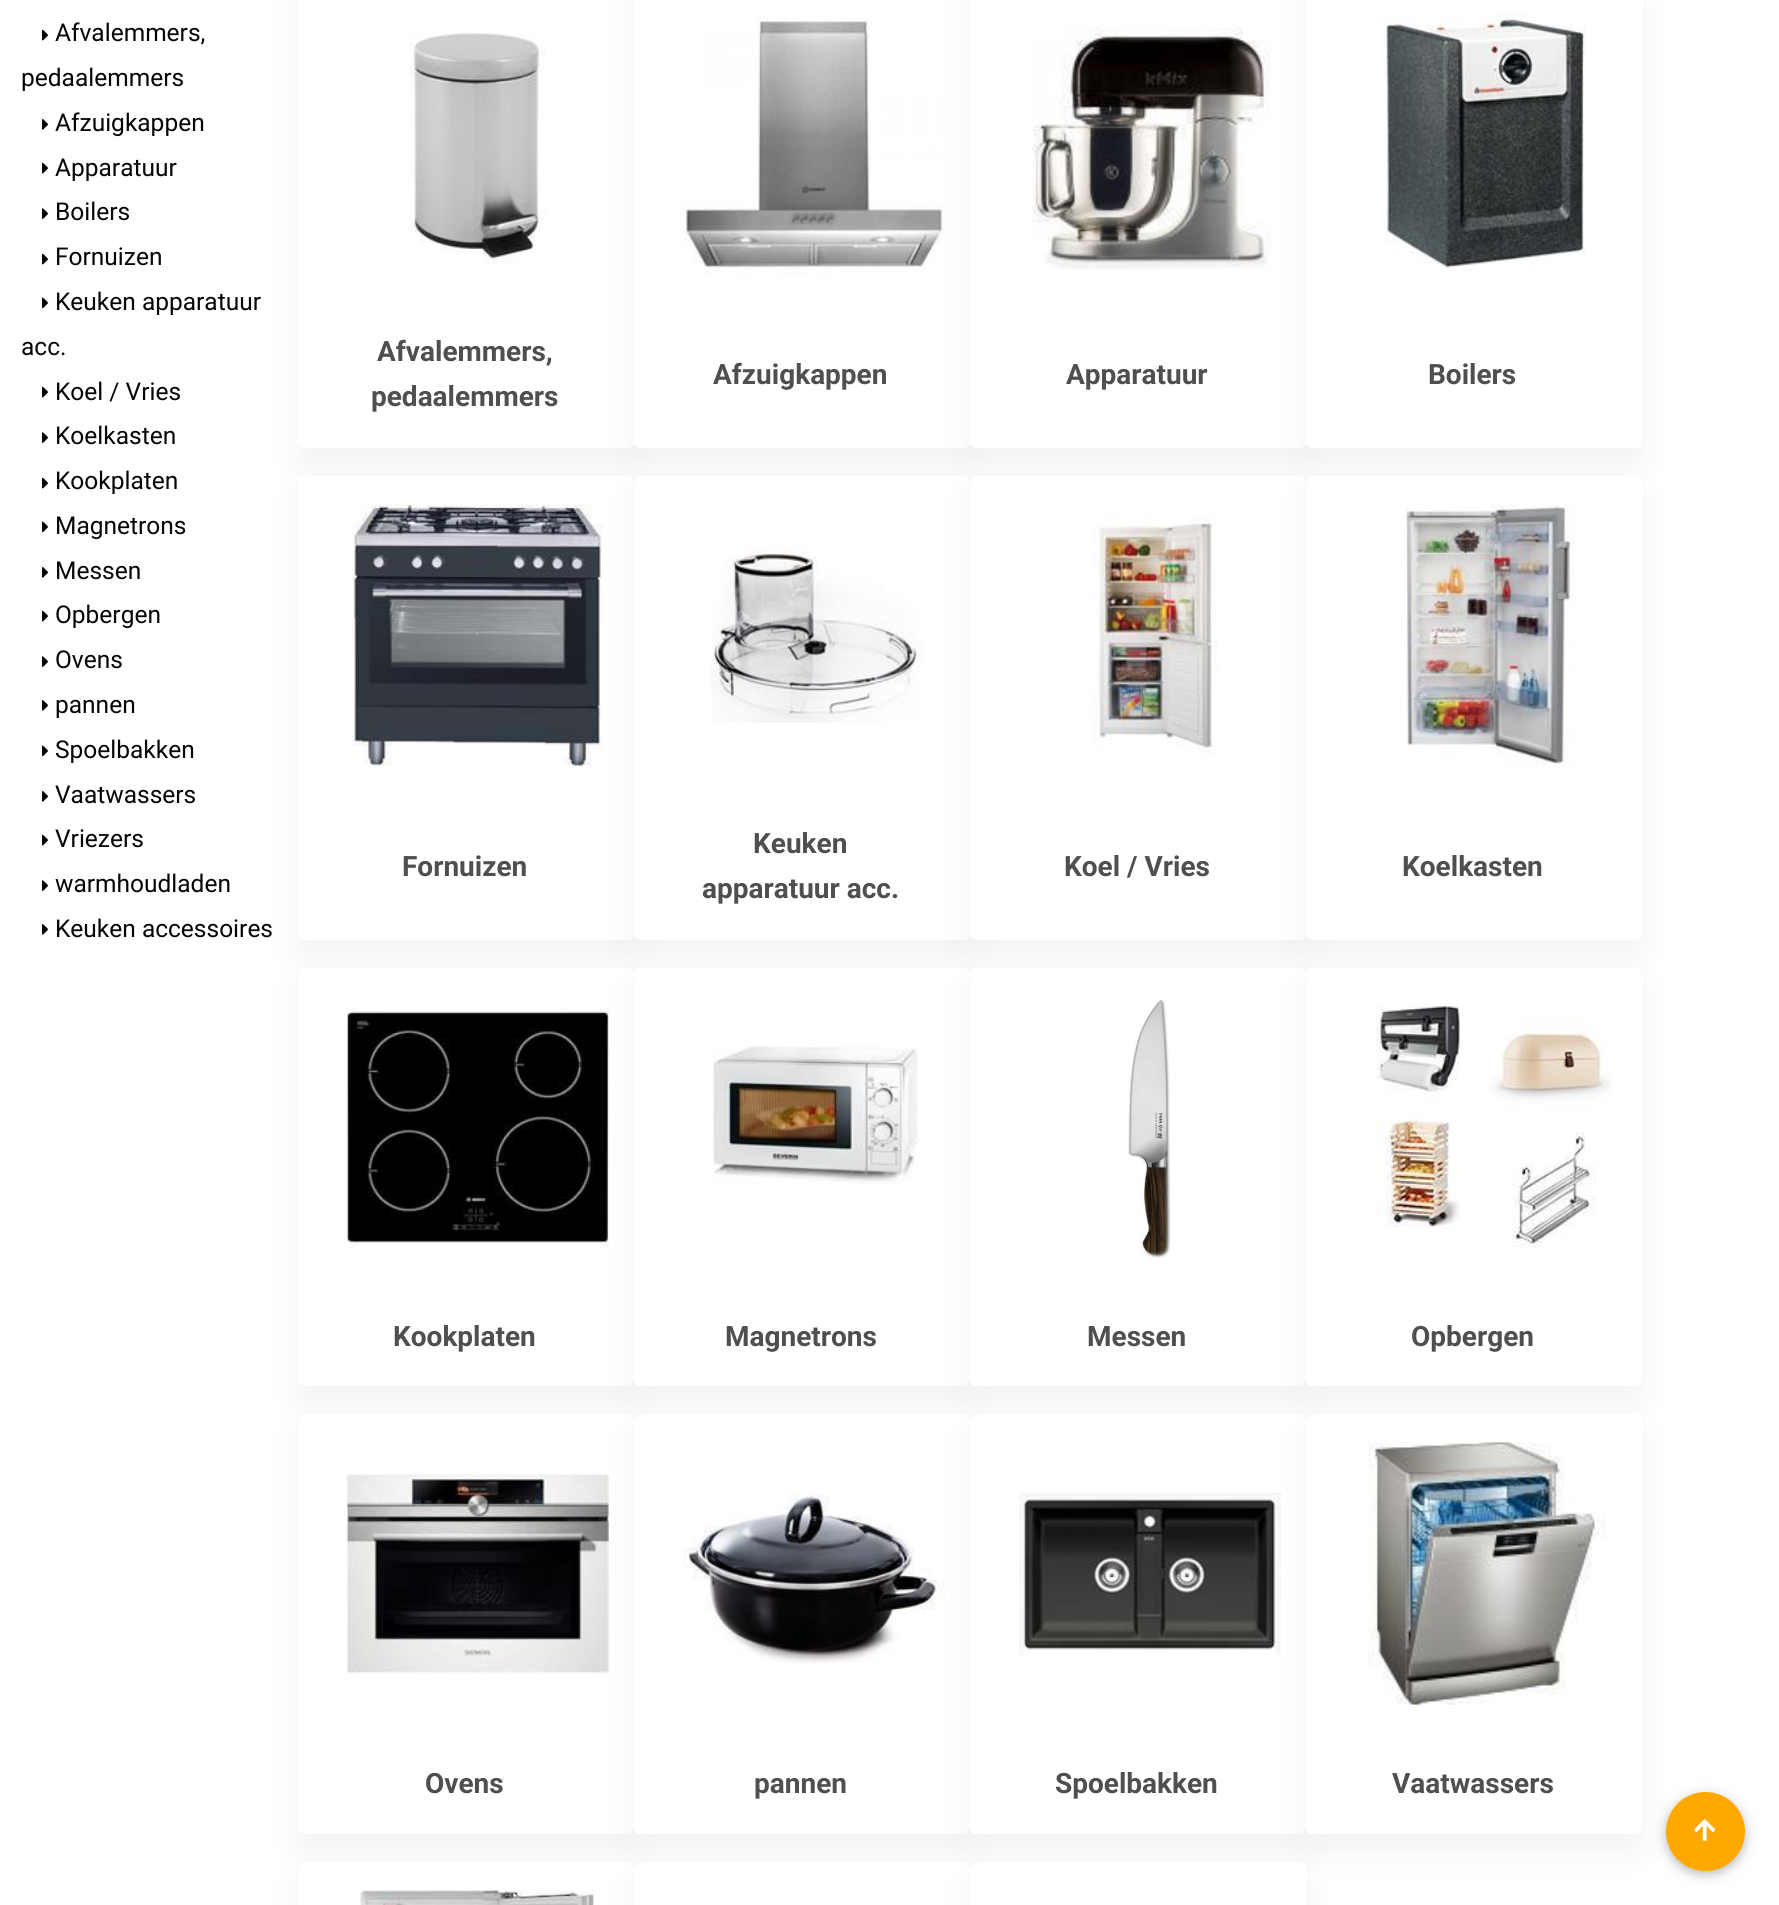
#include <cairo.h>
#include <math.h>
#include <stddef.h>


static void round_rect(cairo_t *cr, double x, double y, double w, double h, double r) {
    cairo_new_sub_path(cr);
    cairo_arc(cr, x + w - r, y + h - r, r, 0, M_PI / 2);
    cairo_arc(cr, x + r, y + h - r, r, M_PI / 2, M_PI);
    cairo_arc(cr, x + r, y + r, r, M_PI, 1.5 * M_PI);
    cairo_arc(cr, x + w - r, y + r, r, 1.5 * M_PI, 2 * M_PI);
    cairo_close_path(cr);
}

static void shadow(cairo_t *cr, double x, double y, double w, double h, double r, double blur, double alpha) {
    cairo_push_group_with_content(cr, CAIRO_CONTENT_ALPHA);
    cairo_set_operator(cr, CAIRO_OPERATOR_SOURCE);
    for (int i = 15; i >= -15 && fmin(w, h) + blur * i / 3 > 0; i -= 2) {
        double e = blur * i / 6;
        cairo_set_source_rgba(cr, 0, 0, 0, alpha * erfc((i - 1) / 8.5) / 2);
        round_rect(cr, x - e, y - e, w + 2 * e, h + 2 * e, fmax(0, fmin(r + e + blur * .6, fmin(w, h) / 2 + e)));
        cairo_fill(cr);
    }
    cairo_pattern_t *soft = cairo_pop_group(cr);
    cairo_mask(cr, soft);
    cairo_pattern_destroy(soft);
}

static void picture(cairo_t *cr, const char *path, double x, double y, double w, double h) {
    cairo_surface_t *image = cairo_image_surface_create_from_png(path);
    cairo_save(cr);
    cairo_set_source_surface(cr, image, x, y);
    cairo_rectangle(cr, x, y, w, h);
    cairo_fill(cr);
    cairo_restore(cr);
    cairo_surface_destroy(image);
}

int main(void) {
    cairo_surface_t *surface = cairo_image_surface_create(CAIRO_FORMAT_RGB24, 1779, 1905);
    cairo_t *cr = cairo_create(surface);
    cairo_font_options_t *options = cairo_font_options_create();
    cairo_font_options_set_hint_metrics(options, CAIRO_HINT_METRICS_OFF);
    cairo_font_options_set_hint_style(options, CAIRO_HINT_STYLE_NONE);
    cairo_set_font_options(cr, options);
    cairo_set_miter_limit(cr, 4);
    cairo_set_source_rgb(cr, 1, 1, 1);
    cairo_paint(cr);
    picture(cr, "img1.png", 42, 29, 6, 12);
    cairo_select_font_face(cr, "Roboto", CAIRO_FONT_SLANT_NORMAL, CAIRO_FONT_WEIGHT_NORMAL);
    cairo_set_font_size(cr, 24.5);
    cairo_set_source_rgb(cr, 0.024, 0.024, 0.024);
    cairo_move_to(cr, 55, 41);
    cairo_show_text(cr, "Afvalemmers,");
    cairo_move_to(cr, 21, 86);
    cairo_show_text(cr, "pedaalemmers");
    picture(cr, "img2.png", 42, 119, 6, 11);
    cairo_move_to(cr, 55, 131);
    cairo_show_text(cr, "Afzuigkappen");
    picture(cr, "img1.png", 42, 162, 6, 12);
    cairo_move_to(cr, 55, 176);
    cairo_show_text(cr, "Apparatuur");
    picture(cr, "img3.png", 42, 208, 6, 11);
    cairo_move_to(cr, 55, 220);
    cairo_show_text(cr, "Boilers");
    picture(cr, "img1.png", 42, 253, 6, 12);
    cairo_move_to(cr, 55, 265);
    cairo_show_text(cr, "Fornuizen");
    picture(cr, "img4.png", 42, 297, 6, 12);
    cairo_move_to(cr, 55, 310);
    cairo_show_text(cr, "Keuken apparatuur");
    cairo_move_to(cr, 21, 355);
    cairo_show_text(cr, "acc.");
    picture(cr, "img1.png", 42, 386, 6, 12);
    cairo_move_to(cr, 55, 400);
    cairo_show_text(cr, "Koel / Vries");
    picture(cr, "img3.png", 42, 432, 6, 11);
    cairo_move_to(cr, 55, 444);
    cairo_show_text(cr, "Koelkasten");
    picture(cr, "img1.png", 42, 477, 6, 12);
    cairo_move_to(cr, 55, 489);
    cairo_show_text(cr, "Kookplaten");
    picture(cr, "img4.png", 42, 521, 6, 12);
    cairo_move_to(cr, 55, 534);
    cairo_show_text(cr, "Magnetrons");
    picture(cr, "img2.png", 42, 567, 6, 11);
    cairo_move_to(cr, 55, 579);
    cairo_show_text(cr, "Messen");
    picture(cr, "img1.png", 42, 610, 6, 12);
    cairo_move_to(cr, 55, 623);
    cairo_show_text(cr, "Opbergen");
    picture(cr, "img3.png", 42, 656, 6, 11);
    cairo_move_to(cr, 55, 668);
    cairo_show_text(cr, "Ovens");
    picture(cr, "img2.png", 42, 700, 6, 11);
    cairo_move_to(cr, 55, 713);
    cairo_show_text(cr, "pannen");
    picture(cr, "img4.png", 42, 745, 6, 12);
    cairo_move_to(cr, 55, 758);
    cairo_show_text(cr, "Spoelbakken");
    picture(cr, "img2.png", 42, 791, 6, 11);
    cairo_move_to(cr, 55, 803);
    cairo_show_text(cr, "Vaatwassers");
    picture(cr, "img1.png", 42, 834, 6, 12);
    cairo_move_to(cr, 55, 847);
    cairo_show_text(cr, "Vriezers");
    picture(cr, "img3.png", 42, 880, 6, 11);
    cairo_move_to(cr, 55, 892);
    cairo_show_text(cr, "warmhoudladen");
    picture(cr, "img2.png", 42, 924, 6, 11);
    cairo_move_to(cr, 55, 937);
    cairo_show_text(cr, "Keuken accessoires");
    cairo_set_source_rgb(cr, 0, 0, 0);
    shadow(cr, 298, 2, 336, 464, 7, 17.5, 0.05);
    cairo_set_source_rgb(cr, 1, 1, 1);
    round_rect(cr, 298, -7, 336, 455, 7);
    cairo_fill(cr);
    picture(cr, "img5.png", 409, 33, 137, 232);
    cairo_select_font_face(cr, "Roboto", CAIRO_FONT_SLANT_NORMAL, CAIRO_FONT_WEIGHT_BOLD);
    cairo_set_font_size(cr, 28);
    cairo_set_source_rgb(cr, 0.31, 0.31, 0.31);
    cairo_move_to(cr, 377, 361);
    cairo_show_text(cr, "Afvalemmers,");
    cairo_move_to(cr, 371, 406);
    cairo_show_text(cr, "pedaalemmers");
    cairo_set_source_rgb(cr, 0, 0, 0);
    shadow(cr, 634, 2, 336, 464, 7, 17.5, 0.05);
    cairo_set_source_rgb(cr, 1, 1, 1);
    round_rect(cr, 634, -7, 336, 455, 7);
    cairo_fill(cr);
    picture(cr, "img6.png", 683, 13, 262, 262);
    cairo_set_source_rgb(cr, 0.31, 0.31, 0.31);
    cairo_move_to(cr, 713, 384);
    cairo_show_text(cr, "Afzuigkappen");
    cairo_set_source_rgb(cr, 0, 0, 0);
    shadow(cr, 970, 2, 336, 464, 7, 17.5, 0.05);
    cairo_set_source_rgb(cr, 1, 1, 1);
    round_rect(cr, 970, -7, 336, 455, 7);
    cairo_fill(cr);
    picture(cr, "img7.png", 1032, 27, 239, 243);
    cairo_set_source_rgb(cr, 0.31, 0.31, 0.31);
    cairo_move_to(cr, 1066, 384);
    cairo_show_text(cr, "Apparatuur");
    cairo_set_source_rgb(cr, 0, 0, 0);
    shadow(cr, 1306, 2, 336, 464, 7, 17.5, 0.05);
    cairo_set_source_rgb(cr, 1, 1, 1);
    round_rect(cr, 1306, -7, 336, 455, 7);
    cairo_fill(cr);
    picture(cr, "img8.png", 1385, 13, 201, 259);
    cairo_set_source_rgb(cr, 0.31, 0.31, 0.31);
    cairo_move_to(cr, 1428, 384);
    cairo_show_text(cr, "Boilers");
    cairo_set_source_rgb(cr, 0, 0, 0);
    shadow(cr, 298, 494, 336, 463, 7, 17.5, 0.05);
    cairo_set_source_rgb(cr, 1, 1, 1);
    round_rect(cr, 298, 476, 336, 464, 7);
    cairo_fill(cr);
    picture(cr, "img9.png", 351, 504, 251, 262);
    cairo_set_source_rgb(cr, 0.31, 0.31, 0.31);
    cairo_move_to(cr, 402, 876);
    cairo_show_text(cr, "Fornuizen");
    cairo_set_source_rgb(cr, 0, 0, 0);
    shadow(cr, 634, 494, 336, 463, 7, 17.5, 0.05);
    cairo_set_source_rgb(cr, 1, 1, 1);
    round_rect(cr, 634, 476, 336, 464, 7);
    cairo_fill(cr);
    picture(cr, "img10.png", 711, 546, 213, 177);
    cairo_set_source_rgb(cr, 0.31, 0.31, 0.31);
    cairo_move_to(cr, 753, 853);
    cairo_show_text(cr, "Keuken");
    cairo_move_to(cr, 702, 898);
    cairo_show_text(cr, "apparatuur acc.");
    cairo_set_source_rgb(cr, 0, 0, 0);
    shadow(cr, 970, 494, 336, 463, 7, 17.5, 0.05);
    cairo_set_source_rgb(cr, 1, 1, 1);
    round_rect(cr, 970, 476, 336, 464, 7);
    cairo_fill(cr);
    picture(cr, "img11.png", 1092, 515, 126, 241);
    cairo_set_source_rgb(cr, 0.31, 0.31, 0.31);
    cairo_move_to(cr, 1064, 876);
    cairo_show_text(cr, "Koel / Vries");
    cairo_set_source_rgb(cr, 0, 0, 0);
    shadow(cr, 1306, 494, 336, 463, 7, 17.5, 0.05);
    cairo_set_source_rgb(cr, 1, 1, 1);
    round_rect(cr, 1306, 476, 336, 464, 7);
    cairo_fill(cr);
    picture(cr, "img12.png", 1405, 504, 170, 262);
    cairo_set_source_rgb(cr, 0.31, 0.31, 0.31);
    cairo_move_to(cr, 1402, 876);
    cairo_show_text(cr, "Koelkasten");
    cairo_set_source_rgb(cr, 0, 0, 0);
    shadow(cr, 298, 985, 336, 419, 7, 17.5, 0.05);
    cairo_set_source_rgb(cr, 1, 1, 1);
    round_rect(cr, 298, 968, 336, 418, 7);
    cairo_fill(cr);
    picture(cr, "img13.png", 346, 1007, 263, 241);
    cairo_set_source_rgb(cr, 0.31, 0.31, 0.31);
    cairo_move_to(cr, 393, 1346);
    cairo_show_text(cr, "Kookplaten");
    cairo_set_source_rgb(cr, 0, 0, 0);
    shadow(cr, 634, 985, 336, 419, 7, 17.5, 0.05);
    cairo_set_source_rgb(cr, 1, 1, 1);
    round_rect(cr, 634, 968, 336, 418, 7);
    cairo_fill(cr);
    picture(cr, "img14.png", 712, 1046, 206, 138);
    cairo_set_source_rgb(cr, 0.31, 0.31, 0.31);
    cairo_move_to(cr, 725, 1346);
    cairo_show_text(cr, "Magnetrons");
    cairo_set_source_rgb(cr, 0, 0, 0);
    shadow(cr, 970, 985, 336, 419, 7, 17.5, 0.05);
    cairo_set_source_rgb(cr, 1, 1, 1);
    round_rect(cr, 970, 968, 336, 418, 7);
    cairo_fill(cr);
    picture(cr, "img15.png", 1128, 999, 43, 259);
    cairo_set_source_rgb(cr, 0.31, 0.31, 0.31);
    cairo_move_to(cr, 1087, 1346);
    cairo_show_text(cr, "Messen");
    cairo_set_source_rgb(cr, 0, 0, 0);
    shadow(cr, 1306, 985, 336, 419, 7, 17.5, 0.05);
    cairo_set_source_rgb(cr, 1, 1, 1);
    round_rect(cr, 1306, 968, 336, 418, 7);
    cairo_fill(cr);
    picture(cr, "img16.png", 1375, 1006, 237, 242);
    cairo_set_source_rgb(cr, 0.31, 0.31, 0.31);
    cairo_move_to(cr, 1411, 1346);
    cairo_show_text(cr, "Opbergen");
    cairo_set_source_rgb(cr, 0, 0, 0);
    shadow(cr, 298, 1432, 336, 420, 7, 17.5, 0.05);
    cairo_set_source_rgb(cr, 1, 1, 1);
    round_rect(cr, 298, 1414, 336, 420, 7);
    cairo_fill(cr);
    picture(cr, "img17.png", 346, 1474, 263, 200);
    cairo_set_source_rgb(cr, 0.31, 0.31, 0.31);
    cairo_move_to(cr, 425, 1793);
    cairo_show_text(cr, "Ovens");
    cairo_set_source_rgb(cr, 0, 0, 0);
    shadow(cr, 634, 1432, 336, 420, 7, 17.5, 0.05);
    cairo_set_source_rgb(cr, 1, 1, 1);
    round_rect(cr, 634, 1414, 336, 420, 7);
    cairo_fill(cr);
    picture(cr, "img18.png", 682, 1494, 263, 170);
    cairo_set_source_rgb(cr, 0.31, 0.31, 0.31);
    cairo_move_to(cr, 754, 1793);
    cairo_show_text(cr, "pannen");
    cairo_set_source_rgb(cr, 0, 0, 0);
    shadow(cr, 970, 1432, 336, 420, 7, 17.5, 0.05);
    cairo_set_source_rgb(cr, 1, 1, 1);
    round_rect(cr, 970, 1414, 336, 420, 7);
    cairo_fill(cr);
    picture(cr, "img19.png", 1019, 1493, 262, 163);
    cairo_set_source_rgb(cr, 0.31, 0.31, 0.31);
    cairo_move_to(cr, 1055, 1793);
    cairo_show_text(cr, "Spoelbakken");
    cairo_set_source_rgb(cr, 0, 0, 0);
    shadow(cr, 1306, 1432, 336, 420, 7, 17.5, 0.05);
    cairo_set_source_rgb(cr, 1, 1, 1);
    round_rect(cr, 1306, 1414, 336, 420, 7);
    cairo_fill(cr);
    picture(cr, "img20.png", 1368, 1442, 238, 263);
    cairo_set_source_rgb(cr, 0.31, 0.31, 0.31);
    cairo_move_to(cr, 1392, 1793);
    cairo_show_text(cr, "Vaatwassers");
    cairo_set_source_rgb(cr, 0, 0, 0);
    shadow(cr, 298, 1880, 336, 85, 7, 17.5, 0.05);
    cairo_set_source_rgb(cr, 1, 1, 1);
    round_rect(cr, 298, 1862, 336, 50, 7);
    cairo_fill(cr);
    picture(cr, "img21.png", 360, 1890, 234, 15);
    cairo_set_source_rgb(cr, 0, 0, 0);
    shadow(cr, 634, 1880, 336, 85, 7, 17.5, 0.05);
    cairo_set_source_rgb(cr, 1, 1, 1);
    round_rect(cr, 634, 1862, 336, 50, 7);
    cairo_fill(cr);
    cairo_set_source_rgb(cr, 0, 0, 0);
    shadow(cr, 970, 1880, 336, 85, 7, 17.5, 0.05);
    cairo_set_source_rgb(cr, 1, 1, 1);
    round_rect(cr, 970, 1862, 336, 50, 7);
    cairo_fill(cr);
    cairo_set_source_rgb(cr, 0, 0, 0);
    shadow(cr, 1666, 1796, 79, 78, 39, 9, 0.1);
    shadow(cr, 1666, 1796, 79, 78, 39, 4.5, 0.2);
    cairo_set_source_rgb(cr, 1, 0.663, 0);
    cairo_arc(cr, 1705.5, 1831.5, 39.5, 0, 2 * M_PI);
    cairo_fill(cr);
    picture(cr, "img22.png", 1694, 1819, 22, 22);
    cairo_surface_write_to_png(surface, "page.png");
    cairo_font_options_destroy(options);
    cairo_destroy(cr);
    cairo_surface_destroy(surface);
    return 0;
}
